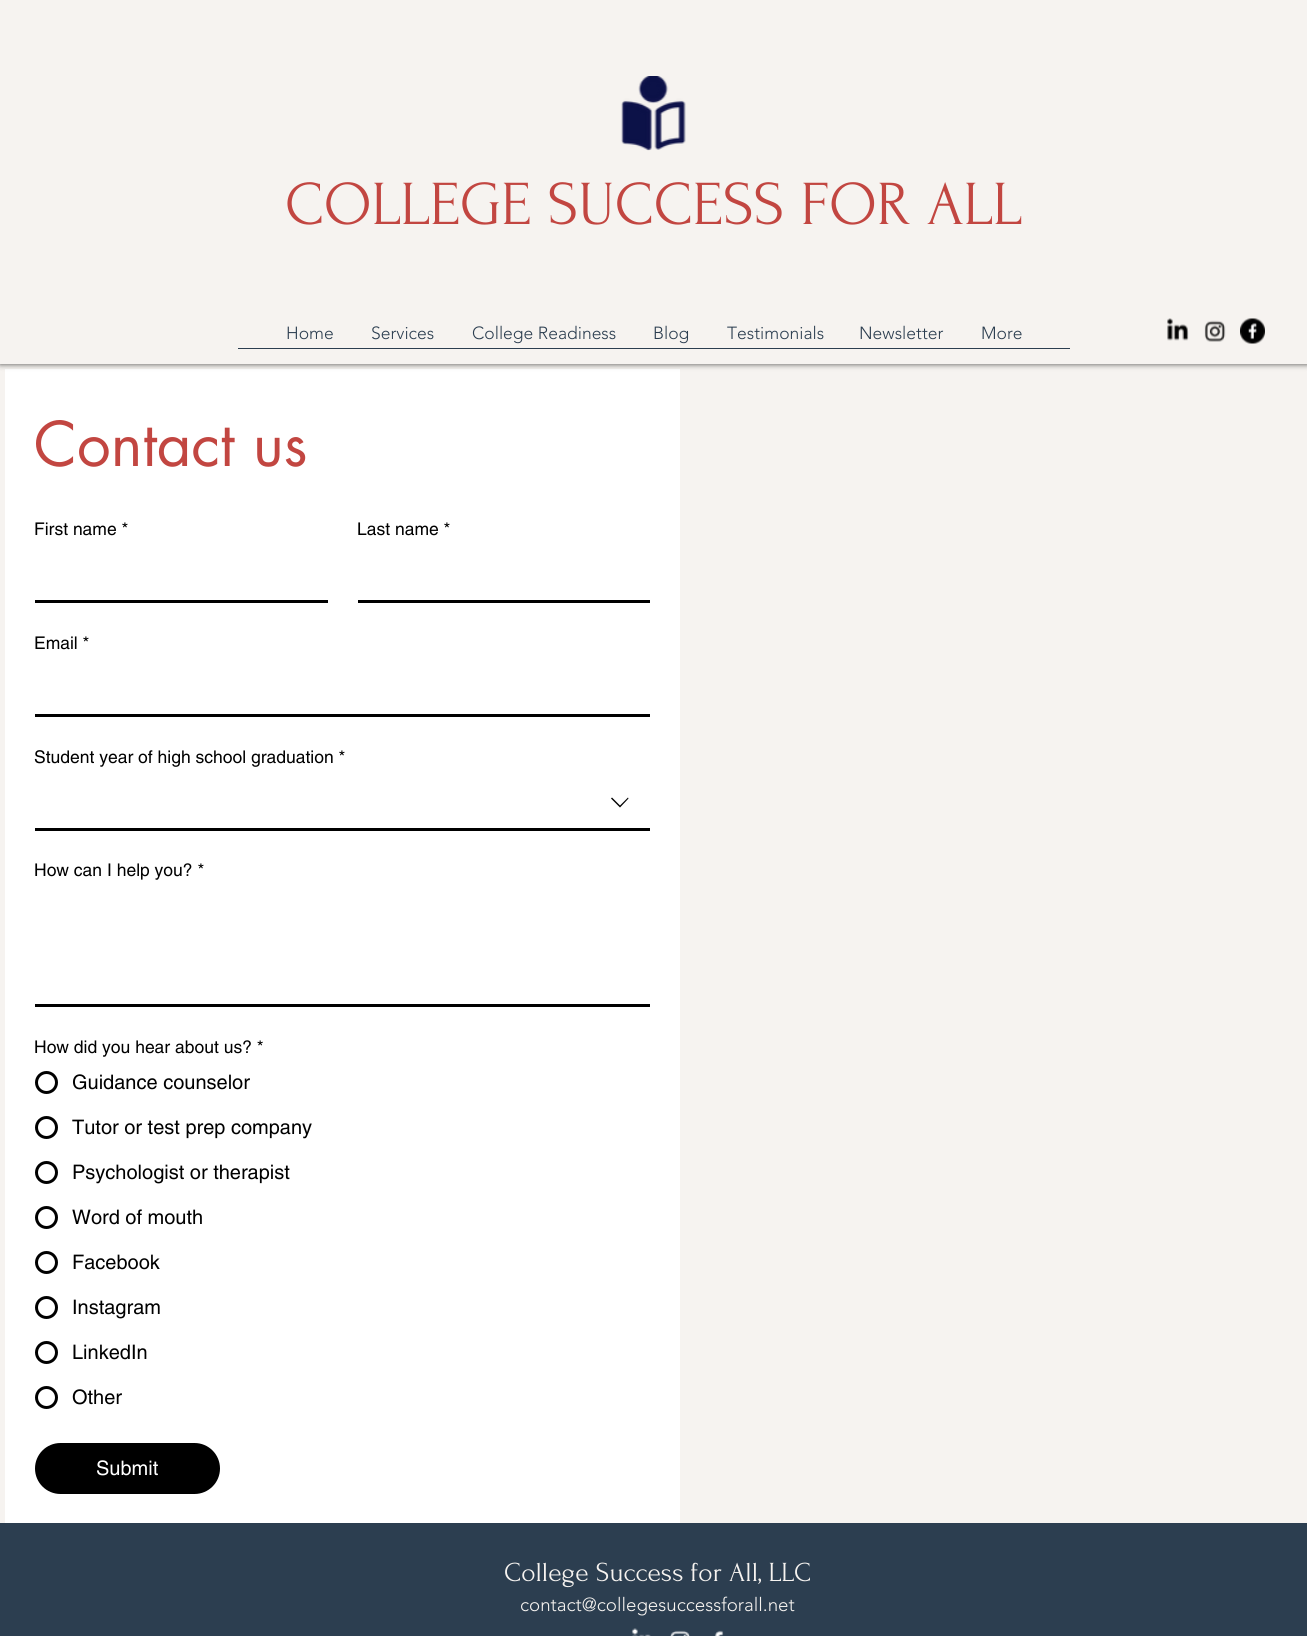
#include <cairo.h>
#include <math.h>
#include <stddef.h>


static void round_rect(cairo_t *cr, double x, double y, double w, double h, double r) {
    cairo_new_sub_path(cr);
    cairo_arc(cr, x + w - r, y + h - r, r, 0, M_PI / 2);
    cairo_arc(cr, x + r, y + h - r, r, M_PI / 2, M_PI);
    cairo_arc(cr, x + r, y + r, r, M_PI, 1.5 * M_PI);
    cairo_arc(cr, x + w - r, y + r, r, 1.5 * M_PI, 2 * M_PI);
    cairo_close_path(cr);
}

static void shadow(cairo_t *cr, double x, double y, double w, double h, double r, double blur, double alpha) {
    cairo_push_group_with_content(cr, CAIRO_CONTENT_ALPHA);
    cairo_set_operator(cr, CAIRO_OPERATOR_SOURCE);
    for (int i = 15; i >= -15 && fmin(w, h) + blur * i / 3 > 0; i -= 2) {
        double e = blur * i / 6;
        cairo_set_source_rgba(cr, 0, 0, 0, alpha * erfc((i - 1) / 8.5) / 2);
        round_rect(cr, x - e, y - e, w + 2 * e, h + 2 * e, fmax(0, fmin(r + e + blur * .6, fmin(w, h) / 2 + e)));
        cairo_fill(cr);
    }
    cairo_pattern_t *soft = cairo_pop_group(cr);
    cairo_mask(cr, soft);
    cairo_pattern_destroy(soft);
}

static void picture(cairo_t *cr, const char *path, double x, double y, double w, double h) {
    cairo_surface_t *image = cairo_image_surface_create_from_png(path);
    cairo_save(cr);
    cairo_set_source_surface(cr, image, x, y);
    cairo_rectangle(cr, x, y, w, h);
    cairo_fill(cr);
    cairo_restore(cr);
    cairo_surface_destroy(image);
}

int main(void) {
    cairo_surface_t *surface = cairo_image_surface_create(CAIRO_FORMAT_RGB24, 1307, 1636);
    cairo_t *cr = cairo_create(surface);
    cairo_font_options_t *options = cairo_font_options_create();
    cairo_font_options_set_hint_metrics(options, CAIRO_HINT_METRICS_OFF);
    cairo_font_options_set_hint_style(options, CAIRO_HINT_STYLE_NONE);
    cairo_set_font_options(cr, options);
    cairo_set_miter_limit(cr, 4);
    cairo_set_source_rgb(cr, 0.961, 0.953, 0.941);
    cairo_paint(cr);
    cairo_set_source_rgb(cr, 1, 1, 1);
    cairo_rectangle(cr, 5, 369, 675, 1154);
    cairo_fill(cr);
    cairo_set_source_rgb(cr, 0, 0, 0);
    shadow(cr, 0, 0, 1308, 364, 0, 3, 0.7);
    cairo_set_source_rgb(cr, 0.961, 0.953, 0.941);
    cairo_rectangle(cr, 0, 0, 1307, 364);
    cairo_fill(cr);
    picture(cr, "img1.png", 621, 76, 65, 75);
    cairo_select_font_face(cr, "Forum", CAIRO_FONT_SLANT_NORMAL, CAIRO_FONT_WEIGHT_NORMAL);
    cairo_set_font_size(cr, 62.5);
    cairo_set_source_rgb(cr, 0.761, 0.275, 0.255);
    cairo_move_to(cr, 285, 224);
    cairo_show_text(cr, "COLLEGE SUCCESS FOR ALL");
    cairo_select_font_face(cr, "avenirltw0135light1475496 Light", CAIRO_FONT_SLANT_NORMAL, CAIRO_FONT_WEIGHT_NORMAL);
    cairo_set_font_size(cr, 17.5);
    cairo_set_source_rgb(cr, 0.173, 0.243, 0.314);
    cairo_move_to(cr, 286, 339);
    cairo_show_text(cr, "Home");
    cairo_move_to(cr, 371, 339);
    cairo_show_text(cr, "Services");
    cairo_move_to(cr, 472, 339);
    cairo_show_text(cr, "College Readiness");
    cairo_move_to(cr, 653, 339);
    cairo_show_text(cr, "Blog");
    cairo_move_to(cr, 727, 339);
    cairo_show_text(cr, "Testimonials");
    cairo_move_to(cr, 859, 339);
    cairo_show_text(cr, "Newsletter");
    cairo_move_to(cr, 981, 339);
    cairo_show_text(cr, "More");
    cairo_rectangle(cr, 238, 348, 832, 1);
    cairo_fill(cr);
    picture(cr, "img2.png", 1167, 318, 22, 23);
    picture(cr, "img3.png", 1204, 320, 22, 22);
    picture(cr, "img4.png", 1240, 318, 25, 26);
    cairo_select_font_face(cr, "futura", CAIRO_FONT_SLANT_NORMAL, CAIRO_FONT_WEIGHT_NORMAL);
    cairo_set_font_size(cr, 60);
    cairo_set_source_rgb(cr, 0.761, 0.275, 0.255);
    cairo_move_to(cr, 34, 466);
    cairo_show_text(cr, "Contact us");
    cairo_select_font_face(cr, "helvetica", CAIRO_FONT_SLANT_NORMAL, CAIRO_FONT_WEIGHT_NORMAL);
    cairo_set_font_size(cr, 17.5);
    cairo_set_source_rgb(cr, 0, 0, 0);
    cairo_move_to(cr, 34, 535);
    cairo_show_text(cr, "First name *");
    cairo_move_to(cr, 357, 535);
    cairo_show_text(cr, "Last name *");
    cairo_rectangle(cr, 35, 600, 293, 3);
    cairo_fill(cr);
    cairo_rectangle(cr, 358, 600, 292, 3);
    cairo_fill(cr);
    cairo_move_to(cr, 34, 649);
    cairo_show_text(cr, "Email *");
    cairo_rectangle(cr, 35, 714, 615, 3);
    cairo_fill(cr);
    cairo_move_to(cr, 34, 763);
    cairo_show_text(cr, "Student year of high school graduation *");
    cairo_rectangle(cr, 35, 828, 615, 3);
    cairo_fill(cr);
    cairo_set_fill_rule(cr, CAIRO_FILL_RULE_EVEN_ODD);
    cairo_new_path(cr);
    cairo_move_to(cr, 628, 797.5);
    cairo_line_to(cr, 628.5, 798.5);
    cairo_line_to(cr, 620, 807.5);
    cairo_line_to(cr, 611, 798.5);
    cairo_line_to(cr, 612, 797.5);
    cairo_line_to(cr, 620, 805.5);
    cairo_close_path(cr);
    cairo_fill(cr);
    cairo_move_to(cr, 34, 876);
    cairo_show_text(cr, "How can I help you? *");
    cairo_rectangle(cr, 35, 1004, 615, 3);
    cairo_fill(cr);
    cairo_move_to(cr, 34, 1053);
    cairo_show_text(cr, "How did you hear about us? *");
    cairo_new_path(cr);
    cairo_arc(cr, 46.5, 1082.5, 10, 0, 2 * M_PI);
    cairo_set_line_width(cr, 3);
    cairo_stroke(cr);
    cairo_set_font_size(cr, 20);
    cairo_move_to(cr, 72, 1089);
    cairo_show_text(cr, "Guidance counselor");
    cairo_new_path(cr);
    cairo_arc(cr, 46.5, 1127.5, 10, 0, 2 * M_PI);
    cairo_stroke(cr);
    cairo_move_to(cr, 72, 1134);
    cairo_show_text(cr, "Tutor or test prep company");
    cairo_new_path(cr);
    cairo_arc(cr, 46.5, 1172.5, 10, 0, 2 * M_PI);
    cairo_stroke(cr);
    cairo_move_to(cr, 72, 1179);
    cairo_show_text(cr, "Psychologist or therapist");
    cairo_new_path(cr);
    cairo_arc(cr, 46.5, 1217.5, 10, 0, 2 * M_PI);
    cairo_stroke(cr);
    cairo_move_to(cr, 72, 1224);
    cairo_show_text(cr, "Word of mouth");
    cairo_new_path(cr);
    cairo_arc(cr, 46.5, 1262.5, 10, 0, 2 * M_PI);
    cairo_stroke(cr);
    cairo_move_to(cr, 72, 1269);
    cairo_show_text(cr, "Facebook");
    cairo_new_path(cr);
    cairo_arc(cr, 46.5, 1307.5, 10, 0, 2 * M_PI);
    cairo_stroke(cr);
    cairo_move_to(cr, 72, 1314);
    cairo_show_text(cr, "Instagram");
    cairo_new_path(cr);
    cairo_arc(cr, 46.5, 1352.5, 10, 0, 2 * M_PI);
    cairo_stroke(cr);
    cairo_move_to(cr, 72, 1359);
    cairo_show_text(cr, "LinkedIn");
    cairo_new_path(cr);
    cairo_arc(cr, 46.5, 1397.5, 10, 0, 2 * M_PI);
    cairo_stroke(cr);
    cairo_move_to(cr, 72, 1404);
    cairo_show_text(cr, "Other");
    round_rect(cr, 35, 1443, 185, 51, 25.5);
    cairo_fill(cr);
    cairo_set_source_rgb(cr, 1, 1, 1);
    cairo_move_to(cr, 96, 1475);
    cairo_show_text(cr, "Submit");
    cairo_set_source_rgb(cr, 0.173, 0.243, 0.314);
    cairo_rectangle(cr, 0, 1523, 1307, 113);
    cairo_fill(cr);
    cairo_select_font_face(cr, "Forum", CAIRO_FONT_SLANT_NORMAL, CAIRO_FONT_WEIGHT_NORMAL);
    cairo_set_font_size(cr, 27.5);
    cairo_set_source_rgb(cr, 0.961, 0.953, 0.941);
    cairo_move_to(cr, 504, 1581);
    cairo_show_text(cr, "College Success for All, LLC");
    cairo_select_font_face(cr, "avenirltw0135light1475496 Light", CAIRO_FONT_SLANT_NORMAL, CAIRO_FONT_WEIGHT_NORMAL);
    cairo_set_font_size(cr, 18.75);
    cairo_move_to(cr, 520, 1611);
    cairo_show_text(cr, "contact@collegesuccessforall.net");
    picture(cr, "img5.png", 631, 1628, 20, 8);
    picture(cr, "img6.png", 670, 1630, 20, 6);
    picture(cr, "img7.png", 714, 1630, 10, 6);
    cairo_surface_write_to_png(surface, "page.png");
    cairo_font_options_destroy(options);
    cairo_destroy(cr);
    cairo_surface_destroy(surface);
    return 0;
}
